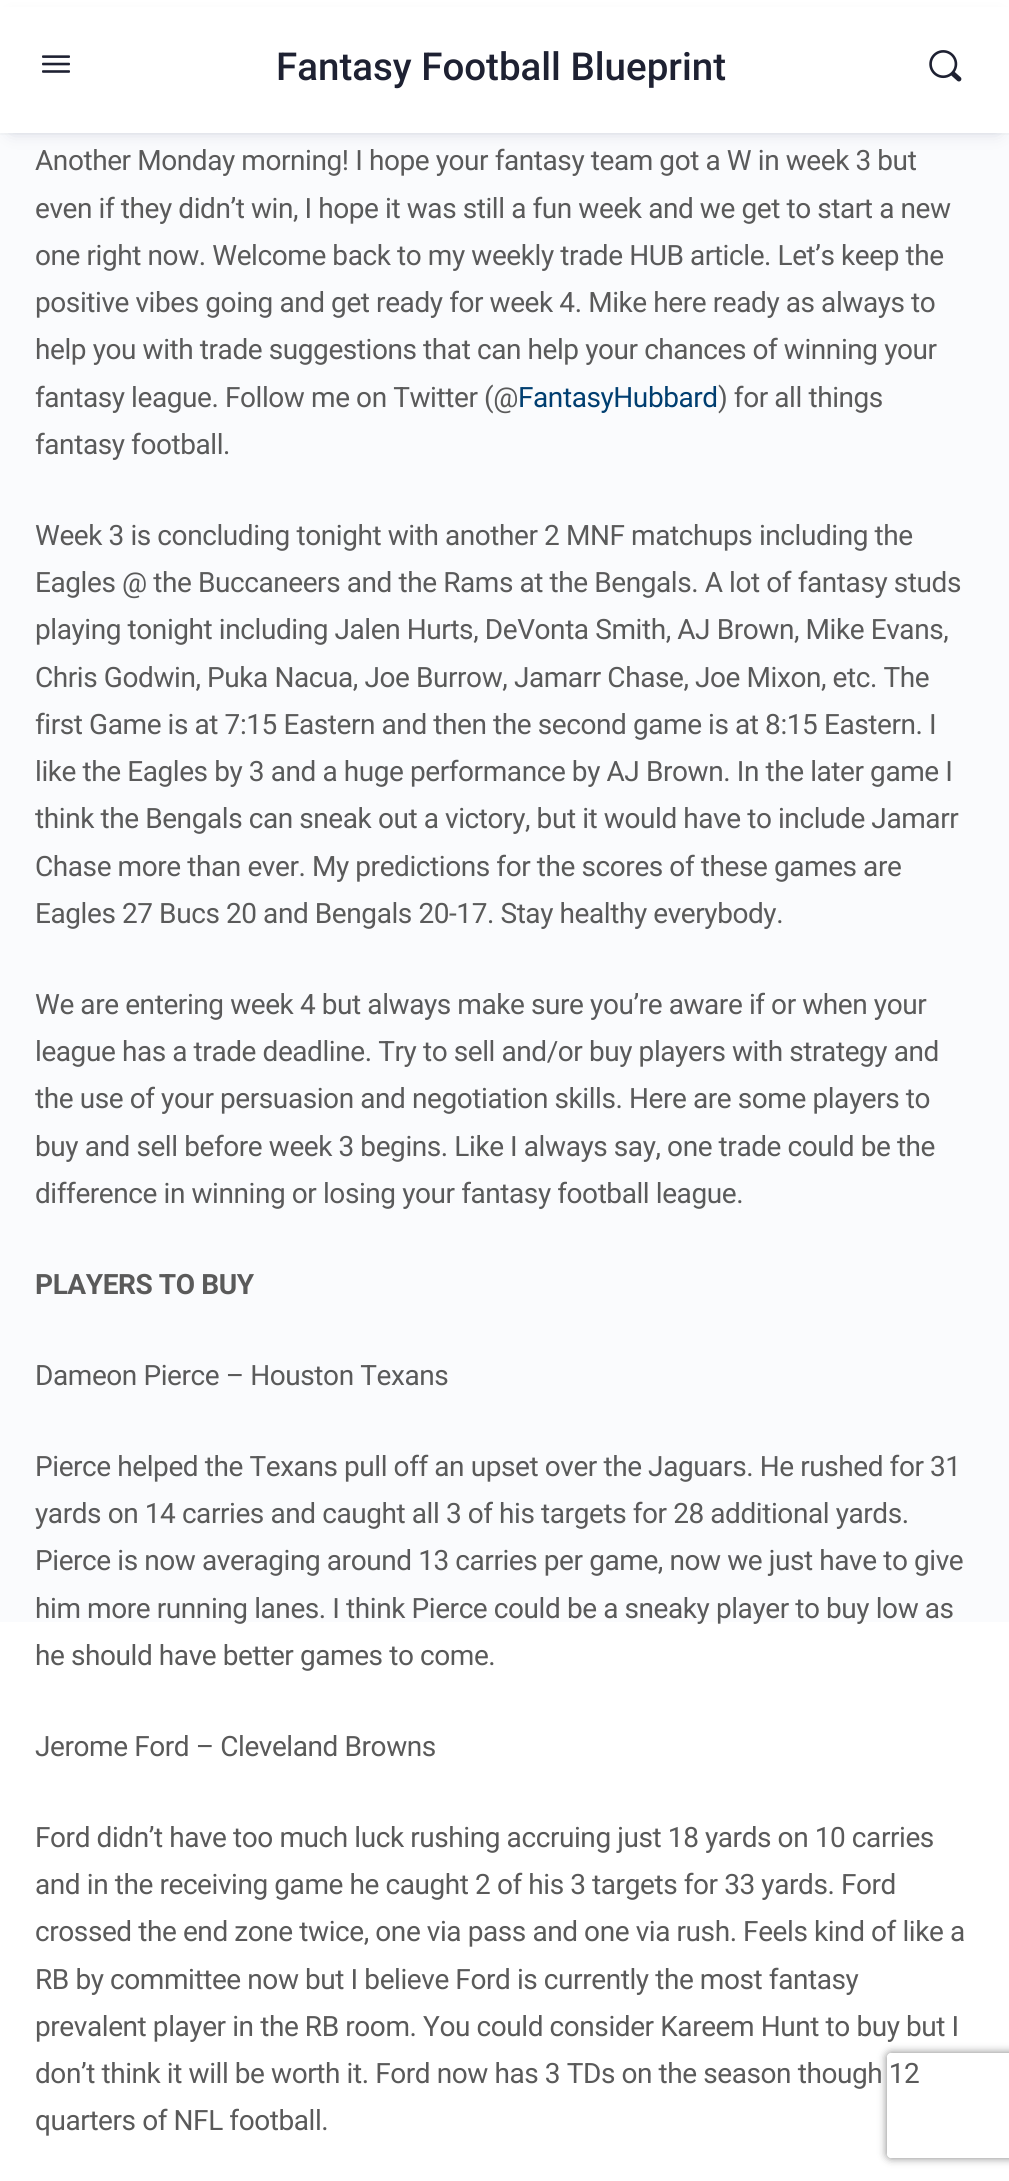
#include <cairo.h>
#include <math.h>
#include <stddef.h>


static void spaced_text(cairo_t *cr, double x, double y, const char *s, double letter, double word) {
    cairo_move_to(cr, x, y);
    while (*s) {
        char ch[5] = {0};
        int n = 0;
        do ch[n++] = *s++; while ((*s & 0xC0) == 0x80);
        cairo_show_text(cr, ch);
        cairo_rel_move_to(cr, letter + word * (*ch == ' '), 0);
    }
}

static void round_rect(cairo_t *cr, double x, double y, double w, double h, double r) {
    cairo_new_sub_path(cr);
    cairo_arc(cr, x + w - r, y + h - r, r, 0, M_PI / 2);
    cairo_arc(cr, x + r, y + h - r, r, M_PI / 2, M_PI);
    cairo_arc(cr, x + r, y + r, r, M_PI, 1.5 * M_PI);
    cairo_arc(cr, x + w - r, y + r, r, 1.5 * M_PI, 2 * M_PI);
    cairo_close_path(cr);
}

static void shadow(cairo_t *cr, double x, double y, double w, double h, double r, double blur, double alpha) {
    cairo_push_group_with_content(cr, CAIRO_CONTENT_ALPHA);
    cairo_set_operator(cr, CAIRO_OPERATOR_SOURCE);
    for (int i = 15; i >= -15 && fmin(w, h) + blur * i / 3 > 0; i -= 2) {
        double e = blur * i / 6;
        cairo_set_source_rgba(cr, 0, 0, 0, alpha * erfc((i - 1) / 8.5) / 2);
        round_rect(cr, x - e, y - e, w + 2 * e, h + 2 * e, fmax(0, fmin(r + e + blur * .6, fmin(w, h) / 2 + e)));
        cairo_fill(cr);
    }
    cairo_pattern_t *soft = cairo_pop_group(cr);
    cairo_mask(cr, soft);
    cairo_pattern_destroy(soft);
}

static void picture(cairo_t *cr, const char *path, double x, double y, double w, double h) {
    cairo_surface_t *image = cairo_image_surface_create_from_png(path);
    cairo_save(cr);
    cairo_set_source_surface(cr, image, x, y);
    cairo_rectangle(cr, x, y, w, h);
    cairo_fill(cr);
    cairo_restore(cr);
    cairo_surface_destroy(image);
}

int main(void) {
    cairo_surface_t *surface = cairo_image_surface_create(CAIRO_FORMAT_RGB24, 1009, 2181);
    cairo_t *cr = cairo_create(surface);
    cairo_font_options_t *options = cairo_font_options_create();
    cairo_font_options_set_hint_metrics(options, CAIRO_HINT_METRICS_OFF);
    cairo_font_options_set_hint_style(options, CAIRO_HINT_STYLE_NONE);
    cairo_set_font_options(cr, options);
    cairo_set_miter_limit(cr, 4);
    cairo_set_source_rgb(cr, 1, 1, 1);
    cairo_paint(cr);
    cairo_set_source_rgb(cr, 0.98, 0.984, 0.992);
    cairo_rectangle(cr, 0, 133, 1009, 1489);
    cairo_fill(cr);
    cairo_set_source_rgb(cr, 0.255, 0.278, 0.424);
    shadow(cr, 12, 21, 986, 109, 0, 9, 0.25);
    cairo_set_source_rgba(cr, 0.545, 0.553, 0.616, 0.05);
    cairo_new_path(cr);
    cairo_move_to(cr, 0, 133);
    cairo_line_to(cr, 0, 135);
    cairo_line_to(cr, 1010, 135);
    cairo_line_to(cr, 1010, 2);
    cairo_line_to(cr, 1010, 133);
    cairo_close_path(cr);
    cairo_fill(cr);
    cairo_set_source_rgb(cr, 1, 1, 1);
    cairo_rectangle(cr, 0, 7, 1009, 126);
    cairo_fill(cr);
    picture(cr, "img1.png", 42, 55, 28, 18);
    cairo_select_font_face(cr, "Roboto Medium", CAIRO_FONT_SLANT_NORMAL, CAIRO_FONT_WEIGHT_NORMAL);
    cairo_set_font_size(cr, 38.5);
    cairo_set_source_rgb(cr, 0.118, 0.129, 0.196);
    cairo_move_to(cr, 276, 80);
    cairo_show_text(cr, "Fantasy Football Blueprint");
    picture(cr, "img2.png", 929, 50, 33, 32);
    cairo_select_font_face(cr, "Roboto", CAIRO_FONT_SLANT_NORMAL, CAIRO_FONT_WEIGHT_NORMAL);
    cairo_set_font_size(cr, 28);
    cairo_set_source_rgb(cr, 0.353, 0.353, 0.353);
    spaced_text(cr, 35, 170, "Another Monday morning! I hope your fantasy team got a W in week 3 but", -0.42, 0);
    spaced_text(cr, 35, 218, "even if they didn’t win, I hope it was still a fun week and we get to start a new", -0.42, 0);
    spaced_text(cr, 35, 265, "one right now. Welcome back to my weekly trade HUB article. Let’s keep the", -0.42, 0);
    spaced_text(cr, 35, 312, "positive vibes going and get ready for week 4. Mike here ready as always to", -0.42, 0);
    spaced_text(cr, 35, 359, "help you with trade suggestions that can help your chances of winning your", -0.42, 0);
    spaced_text(cr, 35, 407, "fantasy league. Follow me on Twitter (@", -0.42, 0);
    cairo_set_source_rgb(cr, 0, 0.243, 0.439);
    spaced_text(cr, 518, 407, "FantasyHubbard", -0.42, 0);
    cairo_set_source_rgb(cr, 0.353, 0.353, 0.353);
    spaced_text(cr, 718, 407, ") for all things", -0.42, 0);
    spaced_text(cr, 35, 454, "fantasy football.", -0.42, 0);
    spaced_text(cr, 35, 545, "Week 3 is concluding tonight with another 2 MNF matchups including the", -0.42, 0);
    spaced_text(cr, 35, 592, "Eagles @ the Buccaneers and the Rams at the Bengals. A lot of fantasy studs", -0.42, 0);
    spaced_text(cr, 35, 639, "playing tonight including Jalen Hurts, DeVonta Smith, AJ Brown, Mike Evans,", -0.42, 0);
    spaced_text(cr, 35, 687, "Chris Godwin, Puka Nacua, Joe Burrow, Jamarr Chase, Joe Mixon, etc. The", -0.42, 0);
    spaced_text(cr, 35, 734, "first Game is at 7:15 Eastern and then the second game is at 8:15 Eastern. I", -0.42, 0);
    spaced_text(cr, 35, 781, "like the Eagles by 3 and a huge performance by AJ Brown. In the later game I", -0.42, 0);
    spaced_text(cr, 35, 828, "think the Bengals can sneak out a victory, but it would have to include Jamarr", -0.42, 0);
    spaced_text(cr, 35, 876, "Chase more than ever. My predictions for the scores of these games are", -0.42, 0);
    spaced_text(cr, 35, 923, "Eagles 27 Bucs 20 and Bengals 20-17. Stay healthy everybody.", -0.42, 0);
    spaced_text(cr, 35, 1014, "We are entering week 4 but always make sure you’re aware if or when your", -0.42, 0);
    spaced_text(cr, 35, 1061, "league has a trade deadline. Try to sell and/or buy players with strategy and", -0.42, 0);
    spaced_text(cr, 35, 1108, "the use of your persuasion and negotiation skills. Here are some players to", -0.42, 0);
    spaced_text(cr, 35, 1156, "buy and sell before week 3 begins. Like I always say, one trade could be the", -0.42, 0);
    spaced_text(cr, 35, 1203, "difference in winning or losing your fantasy football league.", -0.42, 0);
    cairo_select_font_face(cr, "Roboto", CAIRO_FONT_SLANT_NORMAL, CAIRO_FONT_WEIGHT_BOLD);
    spaced_text(cr, 35, 1294, "PLAYERS TO BUY", -0.42, 0);
    cairo_select_font_face(cr, "Roboto", CAIRO_FONT_SLANT_NORMAL, CAIRO_FONT_WEIGHT_NORMAL);
    spaced_text(cr, 35, 1385, "Dameon Pierce – Houston Texans", -0.42, 0);
    spaced_text(cr, 35, 1476, "Pierce helped the Texans pull off an upset over the Jaguars. He rushed for 31", -0.42, 0);
    spaced_text(cr, 35, 1523, "yards on 14 carries and caught all 3 of his targets for 28 additional yards.", -0.42, 0);
    spaced_text(cr, 35, 1570, "Pierce is now averaging around 13 carries per game, now we just have to give", -0.42, 0);
    spaced_text(cr, 35, 1618, "him more running lanes. I think Pierce could be a sneaky player to buy low as", -0.42, 0);
    spaced_text(cr, 35, 1665, "he should have better games to come.", -0.42, 0);
    spaced_text(cr, 35, 1756, "Jerome Ford – Cleveland Browns", -0.42, 0);
    spaced_text(cr, 35, 1847, "Ford didn’t have too much luck rushing accruing just 18 yards on 10 carries", -0.42, 0);
    spaced_text(cr, 35, 1894, "and in the receiving game he caught 2 of his 3 targets for 33 yards. Ford", -0.42, 0);
    spaced_text(cr, 35, 1941, "crossed the end zone twice, one via pass and one via rush. Feels kind of like a", -0.42, 0);
    spaced_text(cr, 35, 1989, "RB by committee now but I believe Ford is currently the most fantasy", -0.42, 0);
    spaced_text(cr, 35, 2036, "prevalent player in the RB room. You could consider Kareem Hunt to buy but I", -0.42, 0);
    spaced_text(cr, 35, 2083, "don’t think it will be worth it. Ford now has 3 TDs on the season though 12", -0.42, 0);
    spaced_text(cr, 35, 2130, "quarters of NFL football.", -0.42, 0);
    cairo_save(cr);
    cairo_set_fill_rule(cr, CAIRO_FILL_RULE_EVEN_ODD);
    cairo_new_path(cr);
    cairo_move_to(cr, 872, 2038);
    cairo_line_to(cr, 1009, 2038);
    cairo_line_to(cr, 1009, 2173);
    cairo_line_to(cr, 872, 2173);
    cairo_close_path(cr);
    cairo_move_to(cr, 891, 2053);
    cairo_line_to(cr, 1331, 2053);
    cairo_curve_to(cr, 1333, 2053, 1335, 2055, 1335, 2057);
    cairo_line_to(cr, 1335, 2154);
    cairo_curve_to(cr, 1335, 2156, 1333, 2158, 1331, 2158);
    cairo_line_to(cr, 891, 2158);
    cairo_curve_to(cr, 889, 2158, 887, 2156, 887, 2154);
    cairo_line_to(cr, 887, 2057);
    cairo_curve_to(cr, 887, 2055, 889, 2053, 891, 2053);
    cairo_close_path(cr);
    cairo_clip(cr);
    cairo_set_source_rgb(cr, 0.502, 0.502, 0.502);
    shadow(cr, 887, 2053, 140, 105, 4, 4.5, 1);
    cairo_restore(cr);
    cairo_surface_write_to_png(surface, "page.png");
    cairo_font_options_destroy(options);
    cairo_destroy(cr);
    cairo_surface_destroy(surface);
    return 0;
}
